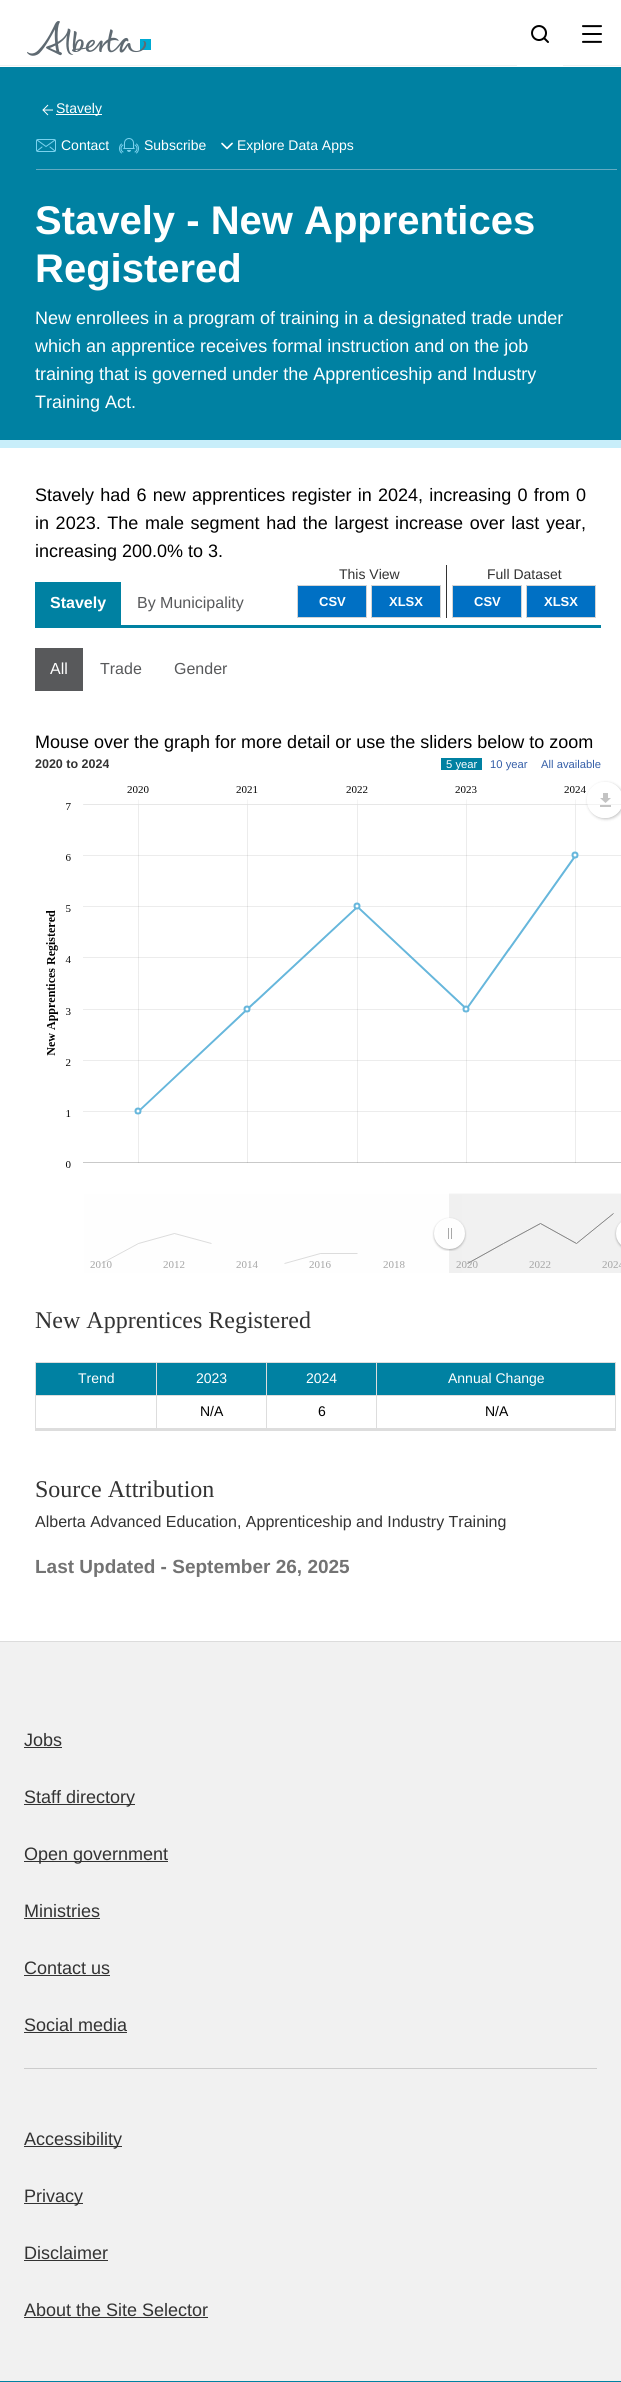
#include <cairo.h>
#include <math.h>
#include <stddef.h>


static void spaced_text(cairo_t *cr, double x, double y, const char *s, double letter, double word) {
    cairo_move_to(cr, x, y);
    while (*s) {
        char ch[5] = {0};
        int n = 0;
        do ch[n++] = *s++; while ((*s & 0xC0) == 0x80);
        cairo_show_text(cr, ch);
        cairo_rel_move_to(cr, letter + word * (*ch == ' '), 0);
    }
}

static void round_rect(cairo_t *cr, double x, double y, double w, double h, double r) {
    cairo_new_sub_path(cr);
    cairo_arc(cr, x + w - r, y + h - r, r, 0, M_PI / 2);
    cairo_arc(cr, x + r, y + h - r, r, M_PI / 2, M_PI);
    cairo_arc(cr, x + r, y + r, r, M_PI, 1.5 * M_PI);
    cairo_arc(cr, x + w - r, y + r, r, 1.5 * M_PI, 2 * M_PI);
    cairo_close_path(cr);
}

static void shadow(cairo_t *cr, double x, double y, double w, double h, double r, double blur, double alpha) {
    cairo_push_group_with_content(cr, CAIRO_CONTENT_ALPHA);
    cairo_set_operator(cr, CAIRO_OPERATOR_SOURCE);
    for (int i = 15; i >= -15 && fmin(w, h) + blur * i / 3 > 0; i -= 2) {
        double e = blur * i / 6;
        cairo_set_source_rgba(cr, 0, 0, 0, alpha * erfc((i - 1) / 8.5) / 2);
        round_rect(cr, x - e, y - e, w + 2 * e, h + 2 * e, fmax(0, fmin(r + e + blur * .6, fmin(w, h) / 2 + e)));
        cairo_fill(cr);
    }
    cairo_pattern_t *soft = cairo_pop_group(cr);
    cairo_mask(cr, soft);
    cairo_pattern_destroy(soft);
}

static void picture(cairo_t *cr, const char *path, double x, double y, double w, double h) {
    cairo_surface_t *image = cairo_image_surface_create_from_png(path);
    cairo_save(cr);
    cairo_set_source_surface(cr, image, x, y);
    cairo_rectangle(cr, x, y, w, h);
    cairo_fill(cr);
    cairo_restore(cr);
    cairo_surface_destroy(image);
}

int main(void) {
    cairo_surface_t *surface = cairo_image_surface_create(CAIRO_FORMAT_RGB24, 621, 2382);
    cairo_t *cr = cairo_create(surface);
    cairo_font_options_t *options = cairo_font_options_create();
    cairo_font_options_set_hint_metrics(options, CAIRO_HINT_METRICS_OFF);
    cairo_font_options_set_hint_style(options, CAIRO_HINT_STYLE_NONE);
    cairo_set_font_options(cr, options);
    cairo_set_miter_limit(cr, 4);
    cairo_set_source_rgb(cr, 1, 1, 1);
    cairo_paint(cr);
    cairo_set_source_rgb(cr, 0.945, 0.945, 0.945);
    cairo_rectangle(cr, 0, 65, 621, 1);
    cairo_fill(cr);
    picture(cr, "img1.png", 27, 21, 124, 35);
    cairo_set_source_rgb(cr, 1, 1, 1);
    cairo_rectangle(cr, 517, 65, 46, 1);
    cairo_fill(cr);
    picture(cr, "img2.png", 531, 25, 18, 18);
    picture(cr, "img3.png", 582, 25, 20, 18);
    cairo_set_source_rgb(cr, 0, 0.506, 0.635);
    cairo_rectangle(cr, 0, 67, 621, 373);
    cairo_fill(cr);
    cairo_set_source_rgb(cr, 0.388, 0.671, 0.761);
    cairo_rectangle(cr, 36, 169, 581, 1);
    cairo_fill(cr);
    cairo_new_path(cr);
    cairo_move_to(cr, 48, 105);
    cairo_line_to(cr, 43, 110);
    cairo_line_to(cr, 48, 115);
    cairo_move_to(cr, 53, 110);
    cairo_line_to(cr, 43, 110);
    cairo_set_source_rgb(cr, 1, 1, 1);
    cairo_set_line_width(cr, 1);
    cairo_stroke(cr);
    cairo_rectangle(cr, 56, 114, 46, 1);
    cairo_fill(cr);
    cairo_select_font_face(cr, "Liberation Sans", CAIRO_FONT_SLANT_NORMAL, CAIRO_FONT_WEIGHT_NORMAL);
    cairo_set_font_size(cr, 14);
    cairo_move_to(cr, 56, 113);
    cairo_show_text(cr, "Stavely");
    picture(cr, "img4.png", 36, 139, 20, 13);
    cairo_move_to(cr, 61, 150);
    cairo_show_text(cr, "Contact");
    picture(cr, "img5.png", 119, 138, 20, 16);
    cairo_move_to(cr, 144, 150);
    cairo_show_text(cr, "Subscribe");
    picture(cr, "img6.png", 221, 142, 12, 8);
    cairo_move_to(cr, 237, 150);
    cairo_show_text(cr, "Explore Data Apps");
    cairo_set_source_rgb(cr, 0.784, 0.933, 0.98);
    cairo_rectangle(cr, 0, 440, 621, 8);
    cairo_fill(cr);
    cairo_select_font_face(cr, "Liberation Sans", CAIRO_FONT_SLANT_NORMAL, CAIRO_FONT_WEIGHT_BOLD);
    cairo_set_font_size(cr, 40);
    cairo_set_source_rgb(cr, 1, 1, 1);
    cairo_move_to(cr, 35, 234);
    cairo_show_text(cr, "Stavely - New Apprentices");
    cairo_move_to(cr, 35, 282);
    cairo_show_text(cr, "Registered");
    cairo_select_font_face(cr, "Liberation Sans", CAIRO_FONT_SLANT_NORMAL, CAIRO_FONT_WEIGHT_NORMAL);
    cairo_set_font_size(cr, 18);
    cairo_move_to(cr, 35, 324);
    cairo_show_text(cr, "New enrollees in a program of training in a designated trade under");
    cairo_move_to(cr, 35, 352);
    cairo_show_text(cr, "which an apprentice receives formal instruction and on the job");
    cairo_move_to(cr, 35, 380);
    cairo_show_text(cr, "training that is governed under the Apprenticeship and Industry");
    cairo_move_to(cr, 35, 408);
    cairo_show_text(cr, "Training Act.");
    cairo_set_source_rgb(cr, 0, 0, 0);
    spaced_text(cr, 35, 501, "Stavely had 6 new apprentices register in 2024, increasing 0 from 0", 0, 1.25);
    spaced_text(cr, 35, 529, "in 2023. The male segment had the largest increase over last year,", 0, 1.6);
    cairo_move_to(cr, 35, 557);
    cairo_show_text(cr, "increasing 200.0% to 3.");
    cairo_set_source_rgb(cr, 0, 0.506, 0.635);
    cairo_rectangle(cr, 35, 625, 566, 3);
    cairo_fill(cr);
    cairo_rectangle(cr, 35, 582, 86, 43);
    cairo_fill(cr);
    cairo_select_font_face(cr, "Liberation Sans", CAIRO_FONT_SLANT_NORMAL, CAIRO_FONT_WEIGHT_BOLD);
    cairo_set_font_size(cr, 16);
    cairo_set_source_rgb(cr, 1, 1, 1);
    cairo_move_to(cr, 50, 608);
    cairo_show_text(cr, "Stavely");
    cairo_select_font_face(cr, "Liberation Sans", CAIRO_FONT_SLANT_NORMAL, CAIRO_FONT_WEIGHT_NORMAL);
    cairo_set_source_rgb(cr, 0.345, 0.349, 0.357);
    cairo_move_to(cr, 137, 608);
    cairo_show_text(cr, "By Municipality");
    cairo_set_source_rgb(cr, 0.2, 0.2, 0.2);
    cairo_rectangle(cr, 446, 565, 1, 53);
    cairo_fill(cr);
    cairo_set_font_size(cr, 14);
    cairo_move_to(cr, 339, 579);
    cairo_show_text(cr, "This View");
    cairo_set_source_rgb(cr, 0, 0.439, 0.769);
    cairo_rectangle(cr, 297.5, 585.5, 69, 32);
    cairo_fill_preserve(cr);
    cairo_set_source_rgb(cr, 0.831, 0.831, 0.831);
    cairo_stroke(cr);
    cairo_select_font_face(cr, "Liberation Sans", CAIRO_FONT_SLANT_NORMAL, CAIRO_FONT_WEIGHT_BOLD);
    cairo_set_font_size(cr, 13);
    cairo_set_source_rgb(cr, 1, 1, 1);
    cairo_move_to(cr, 319, 606);
    cairo_show_text(cr, "CSV");
    cairo_set_source_rgb(cr, 0, 0.439, 0.769);
    cairo_rectangle(cr, 371.5, 585.5, 69, 32);
    cairo_fill_preserve(cr);
    cairo_set_source_rgb(cr, 0.831, 0.831, 0.831);
    cairo_stroke(cr);
    cairo_set_source_rgb(cr, 1, 1, 1);
    cairo_move_to(cr, 389, 606);
    cairo_show_text(cr, "XLSX");
    cairo_select_font_face(cr, "Liberation Sans", CAIRO_FONT_SLANT_NORMAL, CAIRO_FONT_WEIGHT_NORMAL);
    cairo_set_font_size(cr, 14);
    cairo_set_source_rgb(cr, 0.2, 0.2, 0.2);
    cairo_move_to(cr, 487, 579);
    cairo_show_text(cr, "Full Dataset");
    cairo_set_source_rgb(cr, 0, 0.439, 0.769);
    cairo_rectangle(cr, 452.5, 585.5, 69, 32);
    cairo_fill_preserve(cr);
    cairo_set_source_rgb(cr, 0.831, 0.831, 0.831);
    cairo_stroke(cr);
    cairo_select_font_face(cr, "Liberation Sans", CAIRO_FONT_SLANT_NORMAL, CAIRO_FONT_WEIGHT_BOLD);
    cairo_set_font_size(cr, 13);
    cairo_set_source_rgb(cr, 1, 1, 1);
    cairo_move_to(cr, 474, 606);
    cairo_show_text(cr, "CSV");
    cairo_set_source_rgb(cr, 0, 0.439, 0.769);
    cairo_rectangle(cr, 526.5, 585.5, 69, 32);
    cairo_fill_preserve(cr);
    cairo_set_source_rgb(cr, 0.831, 0.831, 0.831);
    cairo_stroke(cr);
    cairo_set_source_rgb(cr, 1, 1, 1);
    cairo_move_to(cr, 544, 606);
    cairo_show_text(cr, "XLSX");
    cairo_set_source_rgb(cr, 0.345, 0.349, 0.357);
    cairo_rectangle(cr, 35, 648, 48, 43);
    cairo_fill(cr);
    cairo_select_font_face(cr, "Liberation Sans", CAIRO_FONT_SLANT_NORMAL, CAIRO_FONT_WEIGHT_NORMAL);
    cairo_set_font_size(cr, 16);
    cairo_set_source_rgb(cr, 1, 1, 1);
    cairo_move_to(cr, 50, 674);
    cairo_show_text(cr, "All");
    cairo_set_source_rgb(cr, 0.345, 0.349, 0.357);
    cairo_move_to(cr, 100, 674);
    cairo_show_text(cr, "Trade");
    cairo_move_to(cr, 174, 674);
    cairo_show_text(cr, "Gender");
    cairo_set_font_size(cr, 18);
    cairo_set_source_rgb(cr, 0, 0, 0);
    cairo_move_to(cr, 35, 748);
    cairo_show_text(cr, "Mouse over the graph for more detail or use the sliders below to zoom");
    cairo_select_font_face(cr, "Liberation Sans", CAIRO_FONT_SLANT_NORMAL, CAIRO_FONT_WEIGHT_BOLD);
    cairo_set_font_size(cr, 12.5);
    cairo_set_source_rgb(cr, 0.2, 0.2, 0.2);
    cairo_move_to(cr, 35, 768);
    cairo_show_text(cr, "2020 to 2024");
    cairo_set_source_rgb(cr, 0, 0.506, 0.635);
    cairo_rectangle(cr, 441, 758, 41, 12);
    cairo_fill(cr);
    cairo_select_font_face(cr, "Liberation Sans", CAIRO_FONT_SLANT_NORMAL, CAIRO_FONT_WEIGHT_NORMAL);
    cairo_set_font_size(cr, 11.25);
    cairo_set_source_rgb(cr, 1, 1, 1);
    cairo_move_to(cr, 446, 768);
    cairo_show_text(cr, "5 year");
    cairo_set_source_rgb(cr, 0.208, 0.373, 0.659);
    cairo_move_to(cr, 490, 768);
    cairo_show_text(cr, "10 year");
    cairo_move_to(cr, 541, 768);
    cairo_show_text(cr, "All available");
    picture(cr, "img8.png", 46, 786, 575, 487);
    cairo_save(cr);
    cairo_set_fill_rule(cr, CAIRO_FILL_RULE_EVEN_ODD);
    cairo_new_path(cr);
    cairo_move_to(cr, 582, 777);
    cairo_line_to(cr, 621, 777);
    cairo_line_to(cr, 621, 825);
    cairo_line_to(cr, 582, 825);
    cairo_close_path(cr);
    cairo_move_to(cr, 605, 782);
    cairo_curve_to(cr, 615, 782, 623, 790, 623, 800);
    cairo_curve_to(cr, 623, 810, 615, 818, 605, 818);
    cairo_curve_to(cr, 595, 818, 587, 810, 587, 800);
    cairo_curve_to(cr, 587, 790, 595, 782, 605, 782);
    cairo_close_path(cr);
    cairo_clip(cr);
    cairo_set_source_rgb(cr, 0, 0, 0);
    shadow(cr, 588, 783, 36, 36, 18, 1.5, 0.25);
    cairo_restore(cr);
    cairo_set_source_rgba(cr, 1, 1, 1, 0.5);
    cairo_arc(cr, 605, 800, 18, 0, 2 * M_PI);
    cairo_fill(cr);
    picture(cr, "img7.png", 600, 793, 11, 14);
    cairo_select_font_face(cr, "Liberation Serif", CAIRO_FONT_SLANT_NORMAL, CAIRO_FONT_WEIGHT_NORMAL);
    cairo_set_font_size(cr, 24);
    cairo_set_source_rgb(cr, 0.2, 0.2, 0.2);
    cairo_move_to(cr, 35, 1328);
    cairo_show_text(cr, "New Apprentices Registered");
    cairo_set_source_rgb(cr, 0.867, 0.867, 0.867);
    cairo_rectangle(cr, 35, 1362, 581, 1);
    cairo_fill(cr);
    cairo_rectangle(cr, 615, 1362, 1, 69);
    cairo_fill(cr);
    cairo_rectangle(cr, 35, 1362, 1, 69);
    cairo_fill(cr);
    cairo_rectangle(cr, 376, 1395, 240, 1);
    cairo_fill(cr);
    cairo_rectangle(cr, 376, 1395, 1, 35);
    cairo_fill(cr);
    cairo_rectangle(cr, 266, 1395, 111, 1);
    cairo_fill(cr);
    cairo_rectangle(cr, 266, 1395, 1, 35);
    cairo_fill(cr);
    cairo_rectangle(cr, 156, 1395, 111, 1);
    cairo_fill(cr);
    cairo_rectangle(cr, 156, 1395, 1, 35);
    cairo_fill(cr);
    cairo_rectangle(cr, 35, 1428, 581, 3);
    cairo_fill(cr);
    cairo_set_source_rgb(cr, 0, 0.506, 0.635);
    cairo_rectangle(cr, 36, 1363, 579, 32);
    cairo_fill(cr);
    cairo_select_font_face(cr, "Liberation Sans", CAIRO_FONT_SLANT_NORMAL, CAIRO_FONT_WEIGHT_NORMAL);
    cairo_set_font_size(cr, 14);
    cairo_set_source_rgb(cr, 1, 1, 1);
    cairo_move_to(cr, 78, 1383);
    cairo_show_text(cr, "Trend");
    cairo_set_source_rgb(cr, 0.867, 0.867, 0.867);
    cairo_rectangle(cr, 35, 1395, 122, 1);
    cairo_fill(cr);
    cairo_rectangle(cr, 156, 1362, 1, 34);
    cairo_fill(cr);
    cairo_set_source_rgb(cr, 1, 1, 1);
    cairo_move_to(cr, 196, 1383);
    cairo_show_text(cr, "2023");
    cairo_set_source_rgb(cr, 0.867, 0.867, 0.867);
    cairo_rectangle(cr, 266, 1362, 1, 34);
    cairo_fill(cr);
    cairo_set_source_rgb(cr, 1, 1, 1);
    cairo_move_to(cr, 306, 1383);
    cairo_show_text(cr, "2024");
    cairo_set_source_rgb(cr, 0.867, 0.867, 0.867);
    cairo_rectangle(cr, 376, 1362, 1, 34);
    cairo_fill(cr);
    cairo_set_source_rgb(cr, 1, 1, 1);
    cairo_move_to(cr, 448, 1383);
    cairo_show_text(cr, "Annual Change");
    cairo_set_source_rgb(cr, 0, 0, 0);
    cairo_move_to(cr, 200, 1416);
    cairo_show_text(cr, "N/A");
    cairo_move_to(cr, 318, 1416);
    cairo_show_text(cr, "6");
    cairo_move_to(cr, 485, 1416);
    cairo_show_text(cr, "N/A");
    cairo_select_font_face(cr, "Liberation Serif", CAIRO_FONT_SLANT_NORMAL, CAIRO_FONT_WEIGHT_NORMAL);
    cairo_set_font_size(cr, 24);
    cairo_set_source_rgb(cr, 0.2, 0.2, 0.2);
    cairo_move_to(cr, 35, 1497);
    cairo_show_text(cr, "Source Attribution");
    cairo_select_font_face(cr, "Liberation Sans", CAIRO_FONT_SLANT_NORMAL, CAIRO_FONT_WEIGHT_NORMAL);
    cairo_set_font_size(cr, 16);
    cairo_move_to(cr, 35, 1527);
    cairo_show_text(cr, "Alberta Advanced Education, Apprenticeship and Industry Training");
    cairo_select_font_face(cr, "Liberation Sans", CAIRO_FONT_SLANT_NORMAL, CAIRO_FONT_WEIGHT_BOLD);
    cairo_set_font_size(cr, 19);
    cairo_set_source_rgb(cr, 0.451, 0.451, 0.451);
    cairo_move_to(cr, 35, 1573);
    cairo_show_text(cr, "Last Updated - September 26, 2025");
    cairo_set_source_rgb(cr, 0.945, 0.945, 0.945);
    cairo_rectangle(cr, 0, 1642, 621, 739);
    cairo_fill(cr);
    cairo_set_source_rgb(cr, 0.863, 0.863, 0.863);
    cairo_rectangle(cr, 0, 1641, 621, 1);
    cairo_fill(cr);
    cairo_set_source_rgb(cr, 0, 0.506, 0.635);
    cairo_rectangle(cr, 0, 2381, 621, 1);
    cairo_fill(cr);
    cairo_select_font_face(cr, "Liberation Sans", CAIRO_FONT_SLANT_NORMAL, CAIRO_FONT_WEIGHT_NORMAL);
    cairo_set_font_size(cr, 18);
    cairo_set_source_rgb(cr, 0.2, 0.2, 0.2);
    cairo_move_to(cr, 24, 1746);
    cairo_show_text(cr, "Jobs");
    cairo_rectangle(cr, 24, 1747, 38, 1);
    cairo_fill(cr);
    cairo_rectangle(cr, 24, 1804, 111, 1);
    cairo_fill(cr);
    cairo_move_to(cr, 24, 1803);
    cairo_show_text(cr, "Staff directory");
    cairo_rectangle(cr, 24, 1861, 144, 1);
    cairo_fill(cr);
    cairo_move_to(cr, 24, 1860);
    cairo_show_text(cr, "Open government");
    cairo_move_to(cr, 24, 1917);
    cairo_show_text(cr, "Ministries");
    cairo_rectangle(cr, 24, 1918, 76, 1);
    cairo_fill(cr);
    cairo_move_to(cr, 24, 1974);
    cairo_show_text(cr, "Contact us");
    cairo_rectangle(cr, 24, 1975, 86, 1);
    cairo_fill(cr);
    cairo_move_to(cr, 24, 2031);
    cairo_show_text(cr, "Social media");
    cairo_rectangle(cr, 24, 2032, 103, 1);
    cairo_fill(cr);
    cairo_set_source_rgb(cr, 0.8, 0.8, 0.8);
    cairo_rectangle(cr, 24, 2068, 573, 1);
    cairo_fill(cr);
    cairo_set_source_rgb(cr, 0.2, 0.2, 0.2);
    cairo_rectangle(cr, 24, 2146, 98, 1);
    cairo_fill(cr);
    cairo_move_to(cr, 24, 2145);
    cairo_show_text(cr, "Accessibility");
    cairo_rectangle(cr, 24, 2203, 59, 1);
    cairo_fill(cr);
    cairo_move_to(cr, 24, 2202);
    cairo_show_text(cr, "Privacy");
    cairo_move_to(cr, 24, 2259);
    cairo_show_text(cr, "Disclaimer");
    cairo_rectangle(cr, 24, 2260, 84, 1);
    cairo_fill(cr);
    cairo_move_to(cr, 24, 2316);
    cairo_show_text(cr, "About the Site Selector");
    cairo_rectangle(cr, 24, 2317, 184, 1);
    cairo_fill(cr);
    cairo_surface_write_to_png(surface, "page.png");
    cairo_font_options_destroy(options);
    cairo_destroy(cr);
    cairo_surface_destroy(surface);
    return 0;
}
